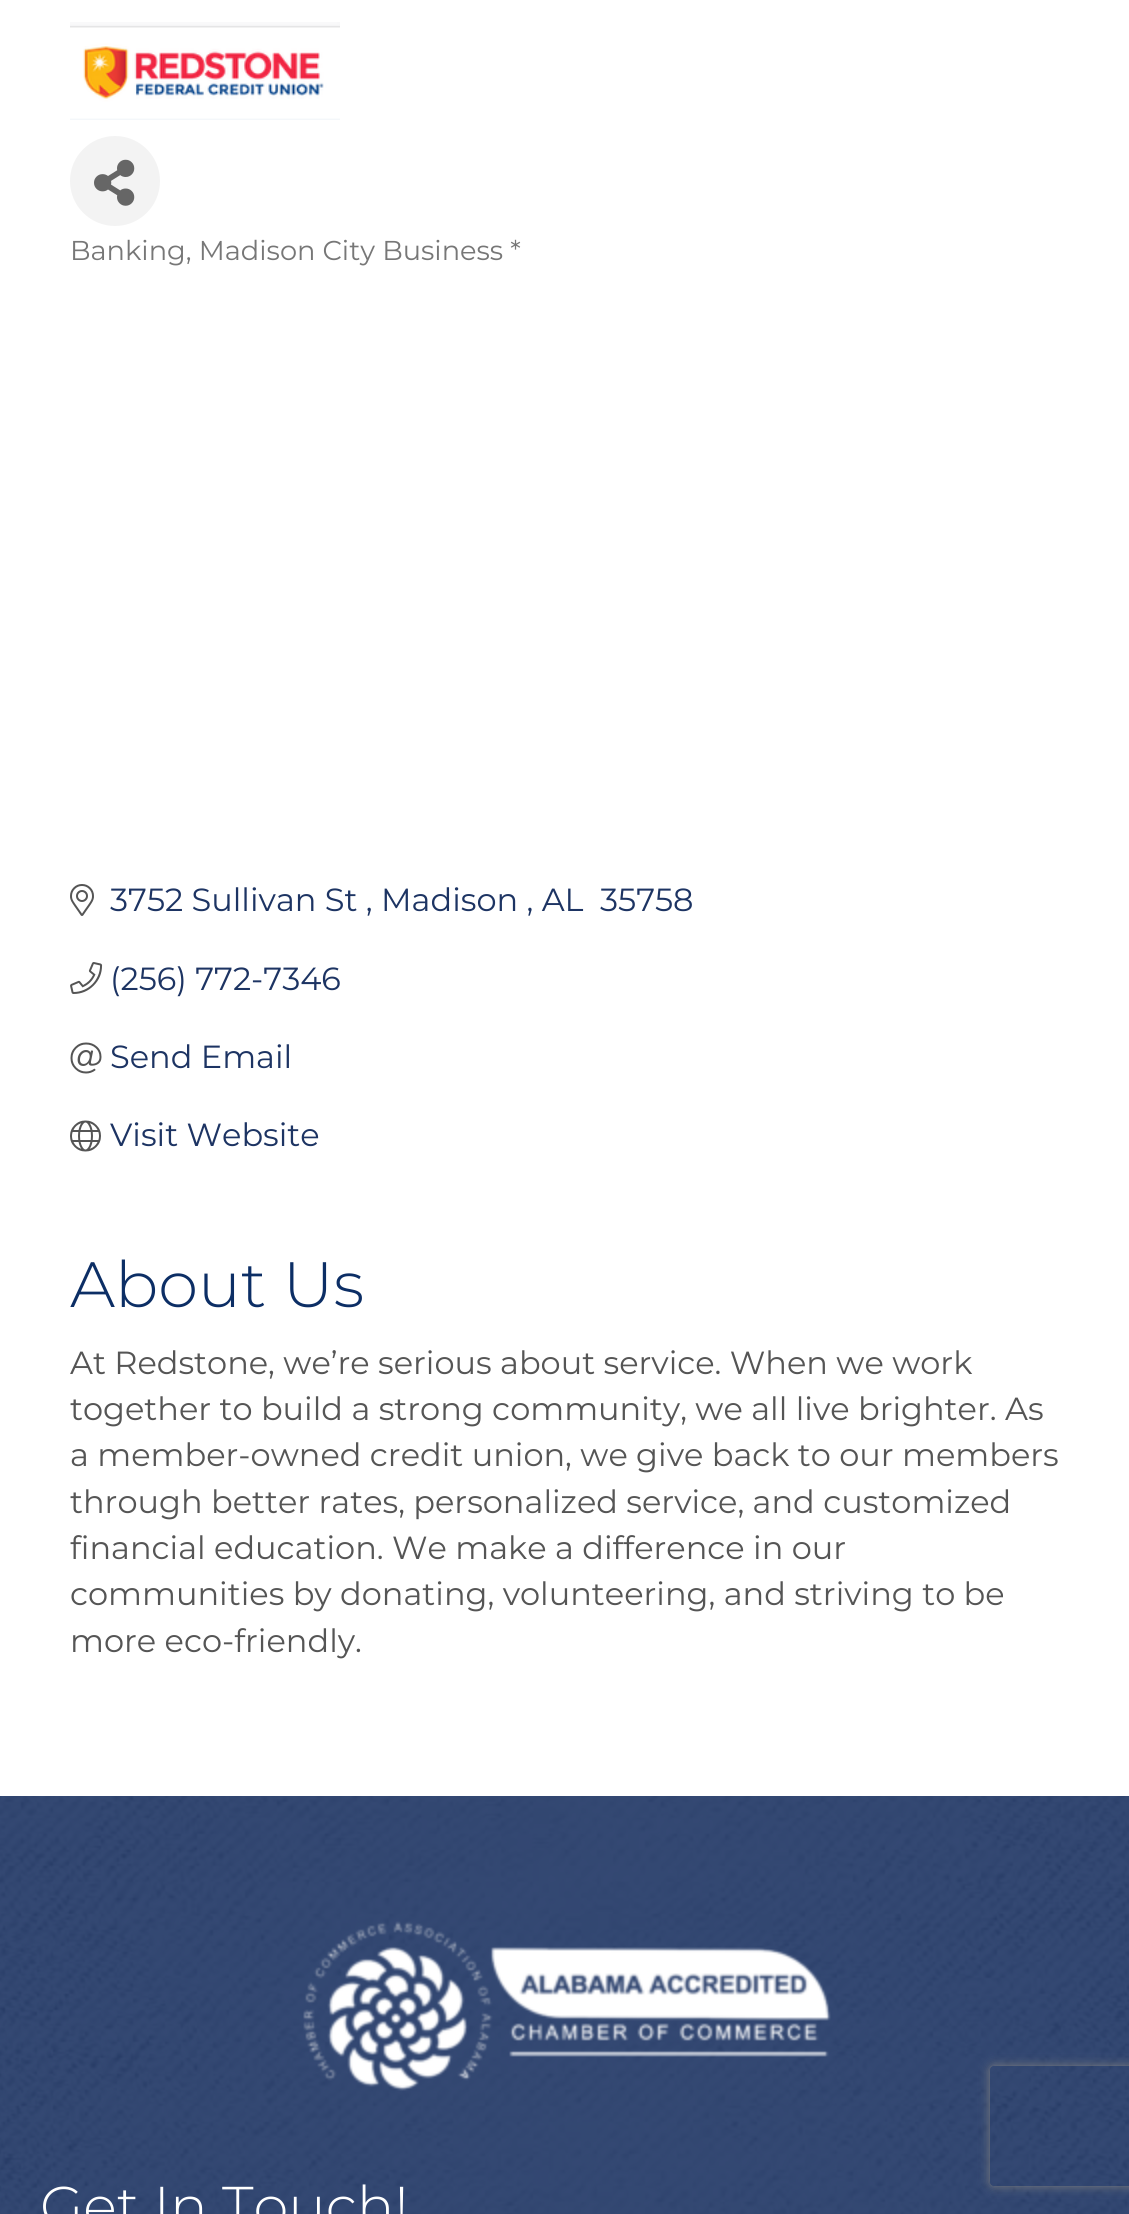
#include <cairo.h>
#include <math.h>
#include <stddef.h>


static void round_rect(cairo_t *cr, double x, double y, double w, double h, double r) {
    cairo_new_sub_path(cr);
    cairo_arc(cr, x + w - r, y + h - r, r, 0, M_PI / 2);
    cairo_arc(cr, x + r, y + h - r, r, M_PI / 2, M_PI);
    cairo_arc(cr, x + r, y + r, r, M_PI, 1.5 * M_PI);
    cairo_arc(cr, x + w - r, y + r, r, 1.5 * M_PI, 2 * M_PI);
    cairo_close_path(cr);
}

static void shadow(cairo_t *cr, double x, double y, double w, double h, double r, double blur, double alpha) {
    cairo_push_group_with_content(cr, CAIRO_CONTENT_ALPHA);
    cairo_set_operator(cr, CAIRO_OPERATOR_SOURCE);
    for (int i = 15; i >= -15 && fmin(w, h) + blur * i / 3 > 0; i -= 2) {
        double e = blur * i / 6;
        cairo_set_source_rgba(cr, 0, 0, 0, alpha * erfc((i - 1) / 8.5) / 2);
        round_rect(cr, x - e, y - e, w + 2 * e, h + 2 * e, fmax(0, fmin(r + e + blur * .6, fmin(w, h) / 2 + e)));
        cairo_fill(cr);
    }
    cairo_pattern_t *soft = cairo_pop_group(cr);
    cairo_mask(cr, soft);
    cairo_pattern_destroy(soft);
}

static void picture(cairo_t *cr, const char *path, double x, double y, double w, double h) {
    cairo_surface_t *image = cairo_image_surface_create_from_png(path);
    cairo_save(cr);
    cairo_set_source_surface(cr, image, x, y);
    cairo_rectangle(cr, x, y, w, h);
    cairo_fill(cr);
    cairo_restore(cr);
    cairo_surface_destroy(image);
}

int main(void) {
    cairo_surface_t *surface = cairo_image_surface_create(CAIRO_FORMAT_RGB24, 1129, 2214);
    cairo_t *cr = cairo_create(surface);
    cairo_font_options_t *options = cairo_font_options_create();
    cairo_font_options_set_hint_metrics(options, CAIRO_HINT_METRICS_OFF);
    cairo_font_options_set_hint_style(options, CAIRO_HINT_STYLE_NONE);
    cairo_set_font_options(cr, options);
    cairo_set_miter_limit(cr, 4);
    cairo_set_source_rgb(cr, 1, 1, 1);
    cairo_paint(cr);
    picture(cr, "img1.png", 70, 22, 270, 98);
    cairo_set_source_rgb(cr, 0.953, 0.953, 0.953);
    cairo_arc(cr, 115, 181, 45, 0, 2 * M_PI);
    cairo_fill(cr);
    picture(cr, "img2.png", 94, 159, 41, 47);
    cairo_select_font_face(cr, "Montserrat", CAIRO_FONT_SLANT_NORMAL, CAIRO_FONT_WEIGHT_NORMAL);
    cairo_set_font_size(cr, 27.25);
    cairo_set_source_rgb(cr, 0.467, 0.467, 0.467);
    cairo_move_to(cr, 70, 260);
    cairo_show_text(cr, "Banking, Madison City Business *");
    picture(cr, "img3.png", 70, 884, 24, 32);
    cairo_set_font_size(cr, 32);
    cairo_set_source_rgb(cr, 0.114, 0.204, 0.388);
    cairo_move_to(cr, 110, 911);
    cairo_show_text(cr, "3752 Sullivan St , Madison , AL");
    cairo_move_to(cr, 600, 911);
    cairo_show_text(cr, "35758");
    picture(cr, "img4.png", 70, 962, 33, 32);
    cairo_move_to(cr, 110, 990);
    cairo_show_text(cr, "(256) 772-7346");
    picture(cr, "img5.png", 70, 1042, 32, 32);
    cairo_move_to(cr, 110, 1068);
    cairo_show_text(cr, "Send Email");
    picture(cr, "img6.png", 70, 1120, 31, 32);
    cairo_move_to(cr, 110, 1146);
    cairo_show_text(cr, "Visit Website");
    cairo_select_font_face(cr, "Montserrat Light", CAIRO_FONT_SLANT_NORMAL, CAIRO_FONT_WEIGHT_NORMAL);
    cairo_set_font_size(cr, 64);
    cairo_set_source_rgb(cr, 0.047, 0.18, 0.396);
    cairo_move_to(cr, 70, 1307);
    cairo_show_text(cr, "About Us");
    cairo_select_font_face(cr, "Montserrat", CAIRO_FONT_SLANT_NORMAL, CAIRO_FONT_WEIGHT_NORMAL);
    cairo_set_font_size(cr, 32);
    cairo_set_source_rgb(cr, 0.333, 0.333, 0.333);
    cairo_move_to(cr, 70, 1374);
    cairo_show_text(cr, "At Redstone, we’re serious about service. When we work");
    cairo_move_to(cr, 70, 1420);
    cairo_show_text(cr, "together to build a strong community, we all live brighter. As");
    cairo_move_to(cr, 70, 1466);
    cairo_show_text(cr, "a member-owned credit union, we give back to our members");
    cairo_move_to(cr, 70, 1513);
    cairo_show_text(cr, "through better rates, personalized service, and customized");
    cairo_move_to(cr, 70, 1559);
    cairo_show_text(cr, "financial education. We make a difference in our");
    cairo_move_to(cr, 70, 1605);
    cairo_show_text(cr, "communities by donating, volunteering, and striving to be");
    cairo_move_to(cr, 70, 1652);
    cairo_show_text(cr, "more eco-friendly.");
    picture(cr, "img7.png", 0, 1796, 1129, 418);
    picture(cr, "img8.png", 303, 1921, 528, 170);
    cairo_select_font_face(cr, "Montserrat Light", CAIRO_FONT_SLANT_NORMAL, CAIRO_FONT_WEIGHT_NORMAL);
    cairo_set_font_size(cr, 56);
    cairo_set_source_rgb(cr, 1, 1, 1);
    cairo_move_to(cr, 40, 2226);
    cairo_show_text(cr, "Get In Touch!");
    cairo_save(cr);
    cairo_set_fill_rule(cr, CAIRO_FILL_RULE_EVEN_ODD);
    cairo_new_path(cr);
    cairo_move_to(cr, 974, 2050);
    cairo_line_to(cr, 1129, 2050);
    cairo_line_to(cr, 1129, 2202);
    cairo_line_to(cr, 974, 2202);
    cairo_close_path(cr);
    cairo_move_to(cr, 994, 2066);
    cairo_line_to(cr, 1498, 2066);
    cairo_curve_to(cr, 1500, 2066, 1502, 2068, 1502, 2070);
    cairo_line_to(cr, 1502, 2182);
    cairo_curve_to(cr, 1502, 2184, 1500, 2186, 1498, 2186);
    cairo_line_to(cr, 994, 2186);
    cairo_curve_to(cr, 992, 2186, 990, 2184, 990, 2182);
    cairo_line_to(cr, 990, 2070);
    cairo_curve_to(cr, 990, 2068, 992, 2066, 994, 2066);
    cairo_close_path(cr);
    cairo_clip(cr);
    cairo_set_source_rgb(cr, 0.502, 0.502, 0.502);
    shadow(cr, 990, 2066, 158, 120, 4, 5, 1);
    cairo_restore(cr);
    cairo_surface_write_to_png(surface, "page.png");
    cairo_font_options_destroy(options);
    cairo_destroy(cr);
    cairo_surface_destroy(surface);
    return 0;
}
